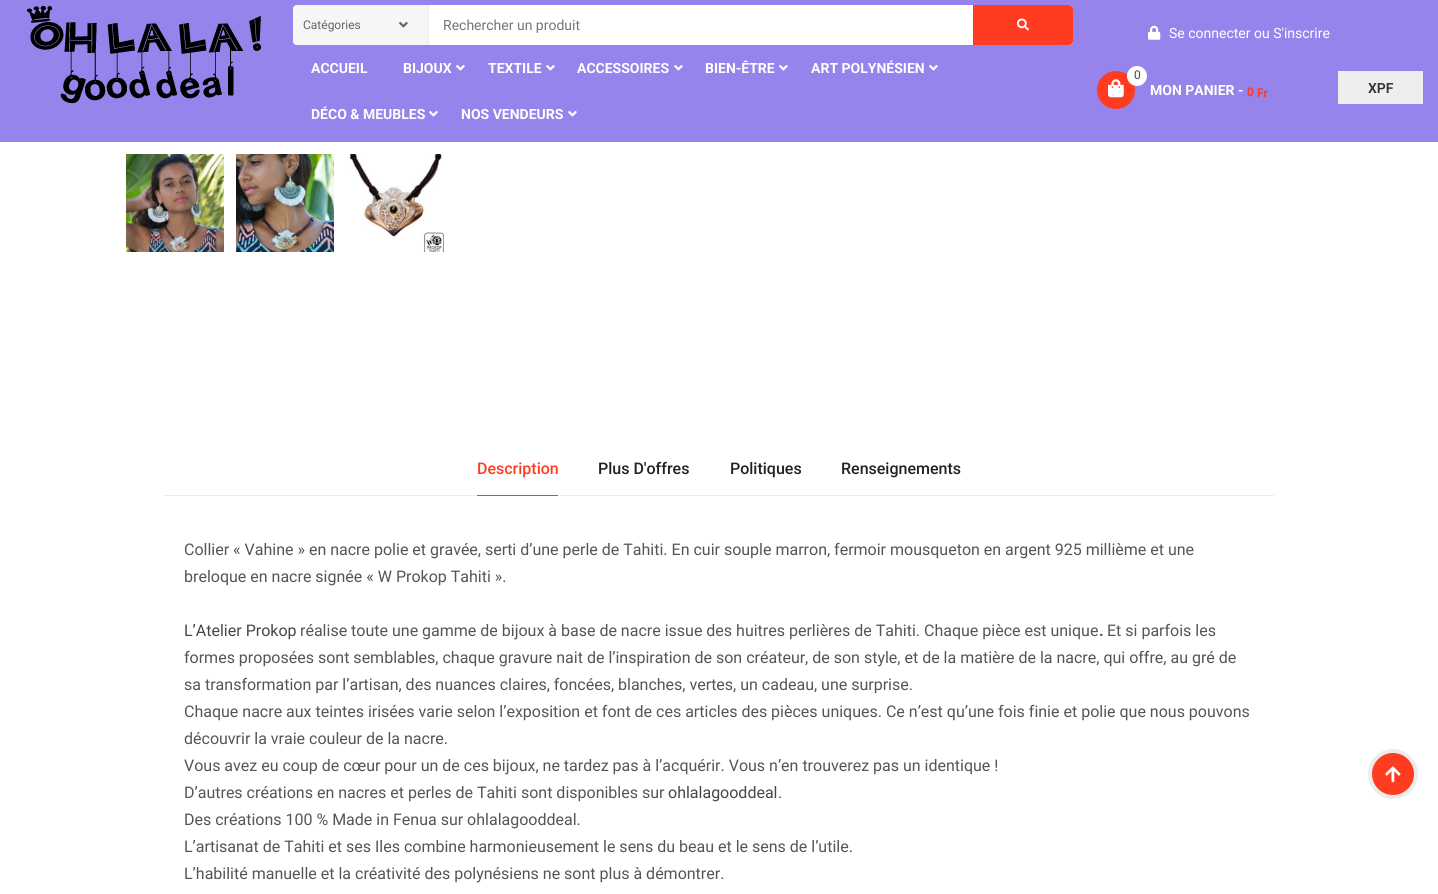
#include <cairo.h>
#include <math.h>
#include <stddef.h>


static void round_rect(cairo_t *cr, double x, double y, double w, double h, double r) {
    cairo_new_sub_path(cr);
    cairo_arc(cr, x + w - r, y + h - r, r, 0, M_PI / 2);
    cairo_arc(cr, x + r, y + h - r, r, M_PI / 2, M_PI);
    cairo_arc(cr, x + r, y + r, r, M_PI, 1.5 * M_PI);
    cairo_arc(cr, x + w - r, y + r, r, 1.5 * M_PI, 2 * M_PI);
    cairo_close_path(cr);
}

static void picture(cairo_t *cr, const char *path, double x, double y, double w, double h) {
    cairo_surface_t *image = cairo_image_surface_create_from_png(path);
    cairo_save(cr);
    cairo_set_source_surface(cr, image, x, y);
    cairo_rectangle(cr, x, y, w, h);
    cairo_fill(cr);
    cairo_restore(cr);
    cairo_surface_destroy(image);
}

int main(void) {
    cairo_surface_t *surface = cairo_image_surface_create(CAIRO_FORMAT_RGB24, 1438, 894);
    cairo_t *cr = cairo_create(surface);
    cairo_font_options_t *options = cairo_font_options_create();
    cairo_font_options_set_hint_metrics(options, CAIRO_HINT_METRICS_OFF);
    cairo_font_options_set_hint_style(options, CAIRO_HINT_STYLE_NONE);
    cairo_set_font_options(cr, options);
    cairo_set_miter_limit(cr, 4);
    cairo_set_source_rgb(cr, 1, 1, 1);
    cairo_paint(cr);
    cairo_set_source_rgb(cr, 0.588, 0.514, 0.925);
    cairo_rectangle(cr, 0, 0, 1438, 142);
    cairo_fill(cr);
    picture(cr, "img1.png", 27, 5, 234, 99);
    cairo_set_source_rgb(cr, 1, 1, 1);
    round_rect(cr, 293, 5, 780, 40, 4);
    cairo_fill(cr);
    cairo_set_source_rgb(cr, 0.922, 0.922, 0.922);
    cairo_rectangle(cr, 428, 5, 1, 40);
    cairo_fill(cr);
    cairo_set_source_rgb(cr, 0.961, 0.961, 0.961);
    cairo_new_path(cr);
    cairo_move_to(cr, 297, 5);
    cairo_line_to(cr, 428, 5);
    cairo_line_to(cr, 428, 45);
    cairo_line_to(cr, 297, 45);
    cairo_curve_to(cr, 295, 45, 293, 43, 293, 41);
    cairo_line_to(cr, 293, 9);
    cairo_curve_to(cr, 293, 7, 295, 5, 297, 5);
    cairo_close_path(cr);
    cairo_fill(cr);
    cairo_select_font_face(cr, "Roboto", CAIRO_FONT_SLANT_NORMAL, CAIRO_FONT_WEIGHT_NORMAL);
    cairo_set_font_size(cr, 12);
    cairo_set_source_rgb(cr, 0.4, 0.4, 0.4);
    cairo_move_to(cr, 303, 29);
    cairo_show_text(cr, "Catégories");
    picture(cr, "img2.png", 399, 22, 9, 6);
    cairo_set_font_size(cr, 14);
    cairo_set_source_rgb(cr, 0.459, 0.459, 0.459);
    cairo_move_to(cr, 443, 30);
    cairo_show_text(cr, "Rechercher un produit");
    cairo_set_source_rgb(cr, 1, 0.235, 0.125);
    cairo_new_path(cr);
    cairo_move_to(cr, 973, 5);
    cairo_line_to(cr, 1069, 5);
    cairo_curve_to(cr, 1071, 5, 1073, 7, 1073, 9);
    cairo_line_to(cr, 1073, 41);
    cairo_curve_to(cr, 1073, 43, 1071, 45, 1069, 45);
    cairo_line_to(cr, 973, 45);
    cairo_close_path(cr);
    cairo_fill(cr);
    picture(cr, "img3.png", 1017, 18, 12, 13);
    cairo_select_font_face(cr, "Roboto", CAIRO_FONT_SLANT_NORMAL, CAIRO_FONT_WEIGHT_BOLD);
    cairo_set_source_rgb(cr, 1, 1, 1);
    cairo_move_to(cr, 311, 73);
    cairo_show_text(cr, "ACCUEIL");
    cairo_move_to(cr, 403, 73);
    cairo_show_text(cr, "BIJOUX");
    picture(cr, "img4.png", 456, 65, 9, 6);
    cairo_move_to(cr, 488, 73);
    cairo_show_text(cr, "TEXTILE");
    picture(cr, "img4.png", 546, 65, 9, 6);
    cairo_move_to(cr, 577, 73);
    cairo_show_text(cr, "ACCESSOIRES");
    picture(cr, "img4.png", 674, 65, 9, 6);
    cairo_move_to(cr, 705, 73);
    cairo_show_text(cr, "BIEN-ÊTRE");
    picture(cr, "img4.png", 779, 65, 9, 6);
    cairo_move_to(cr, 811, 73);
    cairo_show_text(cr, "ART POLYNÉSIEN");
    picture(cr, "img4.png", 929, 65, 9, 6);
    cairo_move_to(cr, 311, 119);
    cairo_show_text(cr, "DÉCO & MEUBLES");
    picture(cr, "img4.png", 429, 111, 9, 6);
    cairo_move_to(cr, 461, 119);
    cairo_show_text(cr, "NOS VENDEURS");
    picture(cr, "img4.png", 568, 111, 9, 6);
    picture(cr, "img5.png", 1148, 25, 13, 15);
    cairo_select_font_face(cr, "Roboto", CAIRO_FONT_SLANT_NORMAL, CAIRO_FONT_WEIGHT_NORMAL);
    cairo_move_to(cr, 1169, 38);
    cairo_show_text(cr, "Se connecter");
    cairo_move_to(cr, 1254, 38);
    cairo_show_text(cr, "ou S'inscrire");
    cairo_set_source_rgb(cr, 1, 0.235, 0.125);
    cairo_new_path(cr);
    cairo_arc(cr, 1116, 90, 19, 0, 2 * M_PI);
    cairo_fill(cr);
    cairo_set_source_rgb(cr, 1, 1, 1);
    cairo_arc(cr, 1137, 76, 10, 0, 2 * M_PI);
    cairo_fill(cr);
    cairo_set_font_size(cr, 12);
    cairo_set_source_rgb(cr, 0.275, 0.275, 0.275);
    cairo_move_to(cr, 1134, 79);
    cairo_show_text(cr, "0");
    picture(cr, "img6.png", 1108, 79, 16, 19);
    cairo_select_font_face(cr, "Roboto", CAIRO_FONT_SLANT_NORMAL, CAIRO_FONT_WEIGHT_BOLD);
    cairo_set_font_size(cr, 14);
    cairo_set_source_rgb(cr, 1, 1, 1);
    cairo_move_to(cr, 1150, 95);
    cairo_show_text(cr, "MON PANIER -");
    cairo_set_font_size(cr, 12);
    cairo_set_source_rgb(cr, 1, 0.235, 0.125);
    cairo_move_to(cr, 1247, 96);
    cairo_show_text(cr, "0");
    cairo_move_to(cr, 1257, 97);
    cairo_show_text(cr, "Fr");
    cairo_set_source_rgb(cr, 0.933, 0.933, 0.933);
    cairo_rectangle(cr, 1338, 71, 85, 33);
    cairo_fill(cr);
    cairo_select_font_face(cr, "Roboto SemiBold", CAIRO_FONT_SLANT_NORMAL, CAIRO_FONT_WEIGHT_NORMAL);
    cairo_set_font_size(cr, 14);
    cairo_set_source_rgb(cr, 0.2, 0.2, 0.2);
    cairo_move_to(cr, 1368, 93);
    cairo_show_text(cr, "XPF");
    picture(cr, "img7.png", 126, 154, 98, 98);
    picture(cr, "img8.png", 236, 154, 98, 98);
    picture(cr, "img9.png", 346, 154, 98, 98);
    cairo_select_font_face(cr, "Roboto Medium", CAIRO_FONT_SLANT_NORMAL, CAIRO_FONT_WEIGHT_NORMAL);
    cairo_set_font_size(cr, 16);
    cairo_set_source_rgb(cr, 1, 0.235, 0.125);
    cairo_move_to(cr, 477, 474);
    cairo_show_text(cr, "Description");
    cairo_set_source_rgb(cr, 0.929, 0.929, 0.929);
    cairo_rectangle(cr, 164, 495, 1110, 1);
    cairo_fill(cr);
    cairo_set_source_rgb(cr, 1, 0.235, 0.125);
    cairo_rectangle(cr, 477, 495, 81, 1);
    cairo_fill(cr);
    cairo_set_source_rgb(cr, 0.133, 0.133, 0.133);
    cairo_move_to(cr, 598, 474);
    cairo_show_text(cr, "Plus D'offres");
    cairo_move_to(cr, 730, 474);
    cairo_show_text(cr, "Politiques");
    cairo_move_to(cr, 841, 474);
    cairo_show_text(cr, "Renseignements");
    cairo_select_font_face(cr, "Roboto", CAIRO_FONT_SLANT_NORMAL, CAIRO_FONT_WEIGHT_NORMAL);
    cairo_set_source_rgb(cr, 0.333, 0.333, 0.333);
    cairo_move_to(cr, 184, 555);
    cairo_show_text(cr, "Collier « Vahine » en nacre polie et gravée, serti d’une perle de Tahiti. En cuir souple marron, fermoir mousqueton en argent 925 millième et une");
    cairo_move_to(cr, 184, 582);
    cairo_show_text(cr, "breloque en nacre signée « W Prokop Tahiti ».");
    cairo_set_source_rgb(cr, 0.275, 0.275, 0.275);
    cairo_move_to(cr, 184, 636);
    cairo_show_text(cr, "L’Atelier Prokop");
    cairo_set_source_rgb(cr, 0.333, 0.333, 0.333);
    cairo_move_to(cr, 300, 636);
    cairo_show_text(cr, "réalise toute une gamme de bijoux à base de nacre issue des huitres perlières de Tahiti. Chaque pièce est unique");
    cairo_select_font_face(cr, "Roboto", CAIRO_FONT_SLANT_NORMAL, CAIRO_FONT_WEIGHT_BOLD);
    cairo_move_to(cr, 1099, 636);
    cairo_show_text(cr, ".");
    cairo_select_font_face(cr, "Roboto", CAIRO_FONT_SLANT_NORMAL, CAIRO_FONT_WEIGHT_NORMAL);
    cairo_move_to(cr, 1107, 636);
    cairo_show_text(cr, "Et si parfois les");
    cairo_move_to(cr, 184, 663);
    cairo_show_text(cr, "formes proposées sont semblables, chaque gravure nait de l’inspiration de son créateur, de son style, et de la matière de la nacre, qui offre, au gré de");
    cairo_move_to(cr, 184, 690);
    cairo_show_text(cr, "sa transformation par l’artisan, des nuances claires, foncées, blanches, vertes, un cadeau, une surprise.");
    cairo_move_to(cr, 184, 717);
    cairo_show_text(cr, "Chaque nacre aux teintes irisées varie selon l’exposition et font de ces articles des pièces uniques. Ce n’est qu’une fois finie et polie que nous pouvons");
    cairo_move_to(cr, 184, 744);
    cairo_show_text(cr, "découvrir la vraie couleur de la nacre.");
    cairo_move_to(cr, 184, 771);
    cairo_show_text(cr, "Vous avez eu coup de cœur pour un de ces bijoux, ne tardez pas à l’acquérir. Vous n’en trouverez pas un identique !");
    cairo_move_to(cr, 184, 798);
    cairo_show_text(cr, "D’autres créations en nacres et perles de Tahiti sont disponibles sur");
    cairo_set_source_rgb(cr, 0.275, 0.275, 0.275);
    cairo_move_to(cr, 668, 798);
    cairo_show_text(cr, "ohlalagooddeal");
    cairo_set_source_rgb(cr, 0.333, 0.333, 0.333);
    cairo_move_to(cr, 778, 798);
    cairo_show_text(cr, ".");
    cairo_move_to(cr, 184, 825);
    cairo_show_text(cr, "Des créations 100 % Made in Fenua sur ohlalagooddeal.");
    cairo_move_to(cr, 184, 852);
    cairo_show_text(cr, "L’artisanat de Tahiti et ses Iles combine harmonieusement le sens du beau et le sens de l’utile.");
    cairo_move_to(cr, 184, 879);
    cairo_show_text(cr, "L’habilité manuelle et la créativité des polynésiens ne sont plus à démontrer.");
    cairo_set_source_rgb(cr, 1, 0.235, 0.125);
    cairo_new_path(cr);
    cairo_arc(cr, 1393, 774, 23, 0, 2 * M_PI);
    cairo_fill_preserve(cr);
    cairo_set_source_rgb(cr, 0.922, 0.922, 0.922);
    cairo_set_line_width(cr, 4);
    cairo_stroke(cr);
    picture(cr, "img10.png", 1385, 766, 16, 17);
    cairo_surface_write_to_png(surface, "page.png");
    cairo_font_options_destroy(options);
    cairo_destroy(cr);
    cairo_surface_destroy(surface);
    return 0;
}
